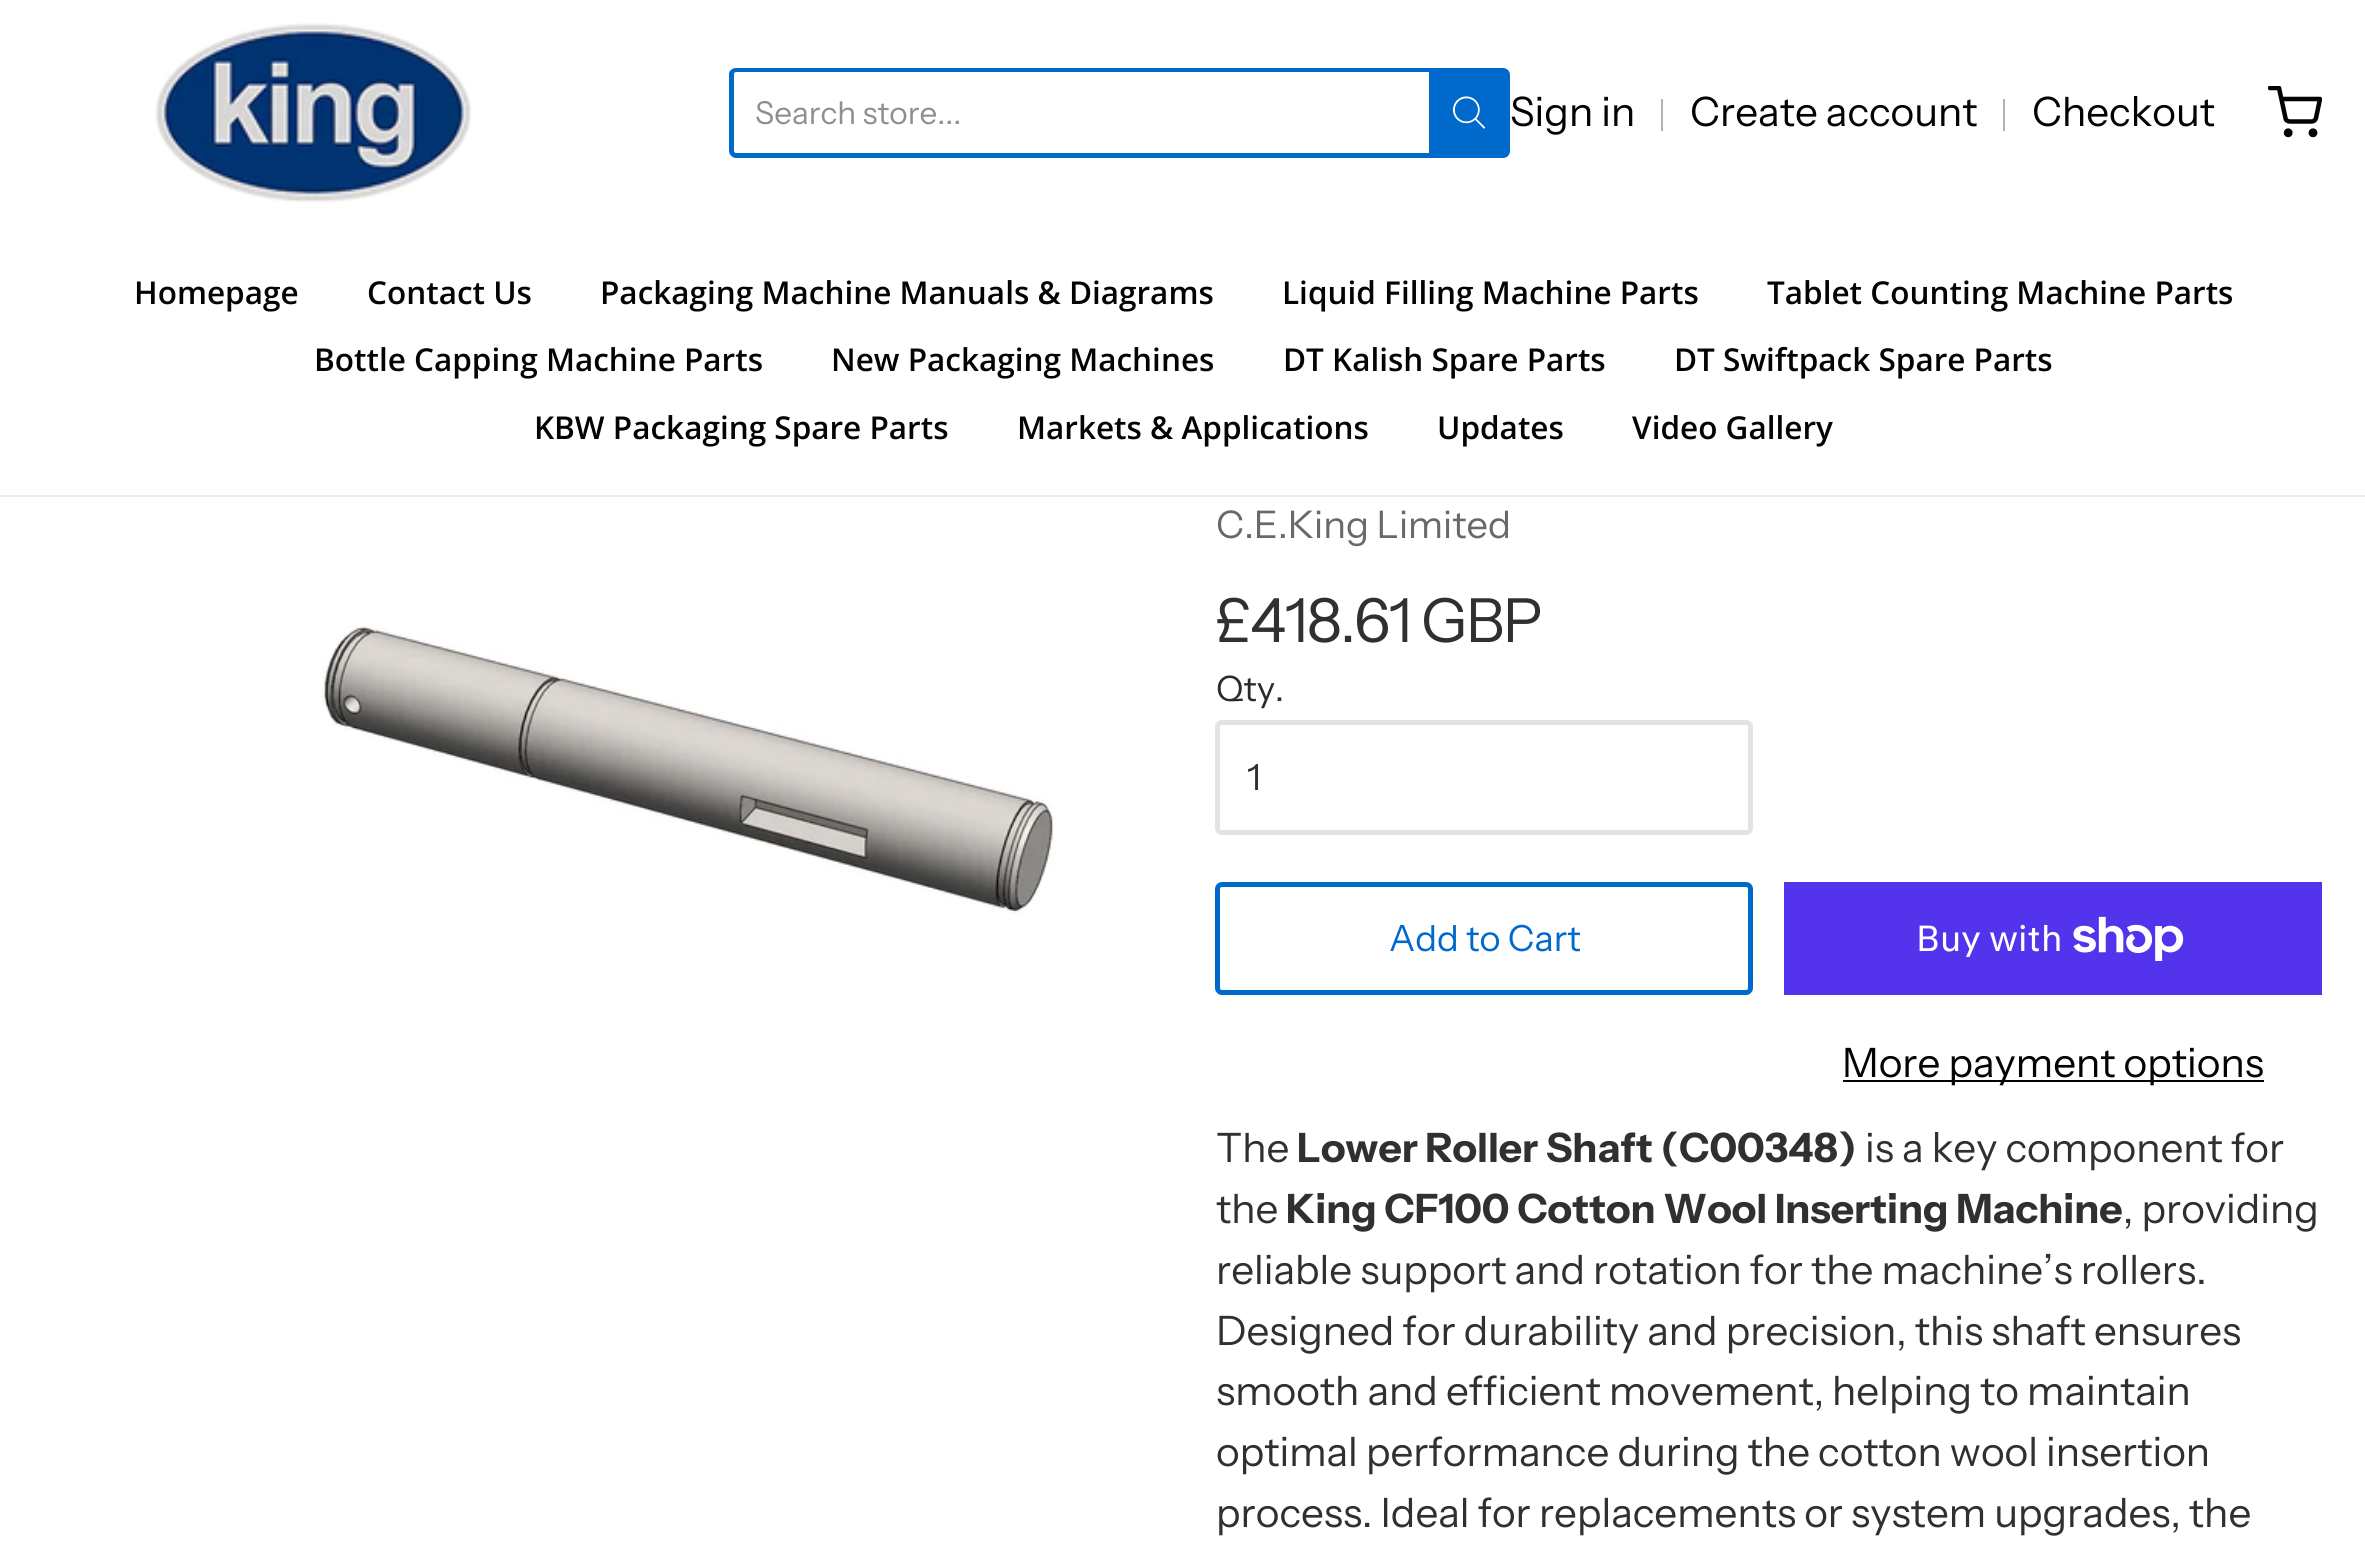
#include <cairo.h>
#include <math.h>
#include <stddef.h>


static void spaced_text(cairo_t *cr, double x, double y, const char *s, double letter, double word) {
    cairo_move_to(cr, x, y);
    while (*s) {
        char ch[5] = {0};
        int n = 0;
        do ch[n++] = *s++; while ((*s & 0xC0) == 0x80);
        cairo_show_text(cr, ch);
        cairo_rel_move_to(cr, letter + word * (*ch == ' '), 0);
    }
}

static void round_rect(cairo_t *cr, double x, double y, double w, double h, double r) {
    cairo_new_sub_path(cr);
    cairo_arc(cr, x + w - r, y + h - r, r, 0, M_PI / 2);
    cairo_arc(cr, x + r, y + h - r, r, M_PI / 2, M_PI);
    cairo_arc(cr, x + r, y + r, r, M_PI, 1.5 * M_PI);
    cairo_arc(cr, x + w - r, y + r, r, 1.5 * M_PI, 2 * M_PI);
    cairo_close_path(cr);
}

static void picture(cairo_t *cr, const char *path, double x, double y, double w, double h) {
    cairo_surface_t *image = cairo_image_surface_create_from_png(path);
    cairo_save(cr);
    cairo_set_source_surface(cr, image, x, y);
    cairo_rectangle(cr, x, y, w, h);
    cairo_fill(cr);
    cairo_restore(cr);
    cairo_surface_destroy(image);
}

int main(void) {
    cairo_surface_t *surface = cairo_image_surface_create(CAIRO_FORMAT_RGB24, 2365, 1546);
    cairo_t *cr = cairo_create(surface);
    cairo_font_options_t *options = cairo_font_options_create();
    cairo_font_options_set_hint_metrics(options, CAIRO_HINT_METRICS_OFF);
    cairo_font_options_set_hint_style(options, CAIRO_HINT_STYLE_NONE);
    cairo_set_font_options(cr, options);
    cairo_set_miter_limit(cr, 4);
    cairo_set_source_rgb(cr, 1, 1, 1);
    cairo_paint(cr);
    cairo_set_source_rgb(cr, 0.922, 0.922, 0.922);
    cairo_rectangle(cr, 0, 495, 2365, 2);
    cairo_fill(cr);
    picture(cr, "img1.png", 155, 23, 316, 180);
    cairo_set_source_rgb(cr, 0, 0.412, 0.8);
    cairo_set_fill_rule(cr, CAIRO_FILL_RULE_EVEN_ODD);
    cairo_new_path(cr);
    cairo_move_to(cr, 736, 68);
    cairo_line_to(cr, 1429, 68);
    cairo_line_to(cr, 1429, 158);
    cairo_line_to(cr, 736, 158);
    cairo_curve_to(cr, 732, 158, 729, 154, 729, 151);
    cairo_line_to(cr, 729, 74);
    cairo_curve_to(cr, 729, 71, 732, 68, 736, 68);
    cairo_close_path(cr);
    cairo_move_to(cr, 736, 72);
    cairo_line_to(cr, 1429, 72);
    cairo_line_to(cr, 1429, 153);
    cairo_line_to(cr, 736, 153);
    cairo_curve_to(cr, 735, 153, 734, 152, 734, 151);
    cairo_line_to(cr, 734, 74);
    cairo_curve_to(cr, 734, 73, 735, 72, 736, 72);
    cairo_close_path(cr);
    cairo_fill(cr);
    cairo_select_font_face(cr, "Instrument Sans", CAIRO_FONT_SLANT_NORMAL, CAIRO_FONT_WEIGHT_NORMAL);
    cairo_set_font_size(cr, 31.5);
    cairo_set_source_rgb(cr, 0.561, 0.561, 0.561);
    cairo_move_to(cr, 755, 124);
    cairo_show_text(cr, "Search store...");
    cairo_set_source_rgb(cr, 0, 0.412, 0.8);
    cairo_new_path(cr);
    cairo_move_to(cr, 1431.5, 70.5);
    cairo_line_to(cr, 1503, 70.5);
    cairo_curve_to(cr, 1505.5, 70.5, 1507.5, 72.5, 1507.5, 75);
    cairo_line_to(cr, 1507.5, 151);
    cairo_curve_to(cr, 1507.5, 153.5, 1505.5, 155.5, 1503, 155.5);
    cairo_line_to(cr, 1431.5, 155.5);
    cairo_close_path(cr);
    cairo_fill_preserve(cr);
    cairo_set_line_width(cr, 5);
    cairo_stroke(cr);
    picture(cr, "img2.png", 1452, 96, 34, 33);
    cairo_set_font_size(cr, 40.5);
    cairo_set_source_rgb(cr, 0.012, 0.012, 0.012);
    cairo_move_to(cr, 1510, 126);
    cairo_show_text(cr, "Sign in");
    cairo_set_source_rgb(cr, 0.702, 0.702, 0.702);
    cairo_rectangle(cr, 1661, 99, 2, 32);
    cairo_fill(cr);
    cairo_set_source_rgb(cr, 0.012, 0.012, 0.012);
    cairo_move_to(cr, 1690, 126);
    cairo_show_text(cr, "Create account");
    cairo_set_source_rgb(cr, 0.702, 0.702, 0.702);
    cairo_rectangle(cr, 2003, 99, 2, 32);
    cairo_fill(cr);
    cairo_set_source_rgb(cr, 0.012, 0.012, 0.012);
    cairo_move_to(cr, 2032, 126);
    cairo_show_text(cr, "Checkout");
    cairo_save(cr);
    cairo_set_fill_rule(cr, CAIRO_FILL_RULE_WINDING);
    cairo_rectangle(cr, 2268, 86, 54, 54);
    cairo_clip(cr);
    cairo_new_path(cr);
    cairo_move_to(cr, 2270, 88);
    cairo_line_to(cr, 2279, 88);
    cairo_line_to(cr, 2285.5, 118);
    cairo_curve_to(cr, 2285.5, 120, 2287.5, 121.5, 2290, 121.5);
    cairo_line_to(cr, 2311.5, 121.5);
    cairo_curve_to(cr, 2314, 121.5, 2315.5, 120, 2316, 118);
    cairo_line_to(cr, 2320, 99);
    cairo_line_to(cr, 2281.5, 99);
    cairo_set_line_width(cr, 4.5);
    cairo_set_line_cap(cr, CAIRO_LINE_CAP_ROUND);
    cairo_set_line_join(cr, CAIRO_LINE_JOIN_ROUND);
    cairo_stroke(cr);
    cairo_restore(cr);
    cairo_arc(cr, 2288.2, 132.8, 2.2, 0, 2 * M_PI);
    cairo_set_line_width(cr, 4.5);
    cairo_stroke(cr);
    cairo_arc(cr, 2313, 132.8, 2.2, 0, 2 * M_PI);
    cairo_stroke(cr);
    cairo_select_font_face(cr, "Open Sans SemiBold", CAIRO_FONT_SLANT_NORMAL, CAIRO_FONT_WEIGHT_NORMAL);
    cairo_set_font_size(cr, 31.5);
    cairo_move_to(cr, 134, 304);
    cairo_show_text(cr, "Homepage");
    cairo_move_to(cr, 367, 304);
    cairo_show_text(cr, "Contact Us");
    cairo_move_to(cr, 600, 304);
    cairo_show_text(cr, "Packaging Machine Manuals & Diagrams");
    cairo_move_to(cr, 1282, 304);
    cairo_show_text(cr, "Liquid Filling Machine Parts");
    cairo_move_to(cr, 1767, 304);
    cairo_show_text(cr, "Tablet Counting Machine Parts");
    cairo_move_to(cr, 314, 371);
    cairo_show_text(cr, "Bottle Capping Machine Parts");
    cairo_move_to(cr, 831, 371);
    cairo_show_text(cr, "New Packaging Machines");
    cairo_move_to(cr, 1283, 371);
    cairo_show_text(cr, "DT Kalish Spare Parts");
    cairo_move_to(cr, 1674, 371);
    cairo_show_text(cr, "DT Swiftpack Spare Parts");
    cairo_move_to(cr, 534, 439);
    cairo_show_text(cr, "KBW Packaging Spare Parts");
    cairo_move_to(cr, 1017, 439);
    cairo_show_text(cr, "Markets & Applications");
    cairo_move_to(cr, 1437, 439);
    cairo_show_text(cr, "Updates");
    cairo_move_to(cr, 1632, 439);
    cairo_show_text(cr, "Video Gallery");
    picture(cr, "img3.png", 322, 626, 732, 289);
    cairo_select_font_face(cr, "Instrument Sans", CAIRO_FONT_SLANT_NORMAL, CAIRO_FONT_WEIGHT_NORMAL);
    cairo_set_font_size(cr, 38);
    cairo_set_source_rgb(cr, 0.412, 0.412, 0.412);
    cairo_move_to(cr, 1216, 538);
    cairo_show_text(cr, "C.E.King Limited");
    cairo_set_font_size(cr, 60.75);
    cairo_set_source_rgb(cr, 0.188, 0.188, 0.188);
    spaced_text(cr, 1216, 642, "£418.61 GBP", -1.75, 0);
    cairo_set_font_size(cr, 35);
    cairo_set_source_rgb(cr, 0.165, 0.169, 0.169);
    cairo_move_to(cr, 1216, 701);
    cairo_show_text(cr, "Qty.");
    round_rect(cr, 1217.5, 722.5, 533, 110, 4.5);
    cairo_set_source_rgb(cr, 0.882, 0.89, 0.894);
    cairo_set_line_width(cr, 5);
    cairo_stroke(cr);
    cairo_set_font_size(cr, 36);
    cairo_set_source_rgb(cr, 0.188, 0.188, 0.188);
    cairo_move_to(cr, 1247, 790);
    cairo_show_text(cr, "1");
    round_rect(cr, 1217.5, 884.5, 533, 108, 4.5);
    cairo_set_source_rgb(cr, 0, 0.412, 0.8);
    cairo_stroke(cr);
    cairo_move_to(cr, 1389, 951);
    cairo_show_text(cr, "Add to Cart");
    cairo_set_source_rgb(cr, 0.329, 0.2, 0.922);
    cairo_rectangle(cr, 1784, 882, 538, 113);
    cairo_fill(cr);
    cairo_select_font_face(cr, "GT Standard", CAIRO_FONT_SLANT_NORMAL, CAIRO_FONT_WEIGHT_NORMAL);
    cairo_set_source_rgb(cr, 1, 1, 1);
    cairo_move_to(cr, 1916, 951);
    cairo_show_text(cr, "Buy with");
    picture(cr, "img4.png", 2073, 916, 111, 45);
    cairo_set_source_rgb(cr, 0.012, 0.012, 0.012);
    cairo_rectangle(cr, 1843, 1080, 421, 2);
    cairo_fill(cr);
    cairo_select_font_face(cr, "Instrument Sans", CAIRO_FONT_SLANT_NORMAL, CAIRO_FONT_WEIGHT_NORMAL);
    cairo_set_font_size(cr, 40.5);
    cairo_move_to(cr, 1842, 1077);
    cairo_show_text(cr, "More payment options");
    cairo_set_source_rgb(cr, 0.188, 0.188, 0.188);
    cairo_move_to(cr, 1216, 1162);
    cairo_show_text(cr, "The");
    cairo_select_font_face(cr, "Instrument Sans", CAIRO_FONT_SLANT_NORMAL, CAIRO_FONT_WEIGHT_BOLD);
    cairo_move_to(cr, 1297, 1162);
    cairo_show_text(cr, "Lower Roller Shaft (C00348)");
    cairo_select_font_face(cr, "Instrument Sans", CAIRO_FONT_SLANT_NORMAL, CAIRO_FONT_WEIGHT_NORMAL);
    cairo_move_to(cr, 1865, 1162);
    cairo_show_text(cr, "is a key component for");
    cairo_move_to(cr, 1216, 1223);
    cairo_show_text(cr, "the");
    cairo_select_font_face(cr, "Instrument Sans", CAIRO_FONT_SLANT_NORMAL, CAIRO_FONT_WEIGHT_BOLD);
    cairo_move_to(cr, 1286, 1223);
    cairo_show_text(cr, "King CF100 Cotton Wool Inserting Machine");
    cairo_select_font_face(cr, "Instrument Sans", CAIRO_FONT_SLANT_NORMAL, CAIRO_FONT_WEIGHT_NORMAL);
    cairo_move_to(cr, 2123, 1223);
    cairo_show_text(cr, ", providing");
    cairo_move_to(cr, 1216, 1284);
    cairo_show_text(cr, "reliable support and rotation for the machine’s rollers.");
    cairo_move_to(cr, 1216, 1345);
    cairo_show_text(cr, "Designed for durability and precision, this shaft ensures");
    cairo_move_to(cr, 1216, 1405);
    cairo_show_text(cr, "smooth and efficient movement, helping to maintain");
    cairo_move_to(cr, 1216, 1466);
    cairo_show_text(cr, "optimal performance during the cotton wool insertion");
    cairo_move_to(cr, 1216, 1527);
    cairo_show_text(cr, "process. Ideal for replacements or system upgrades, the");
    cairo_surface_write_to_png(surface, "page.png");
    cairo_font_options_destroy(options);
    cairo_destroy(cr);
    cairo_surface_destroy(surface);
    return 0;
}
